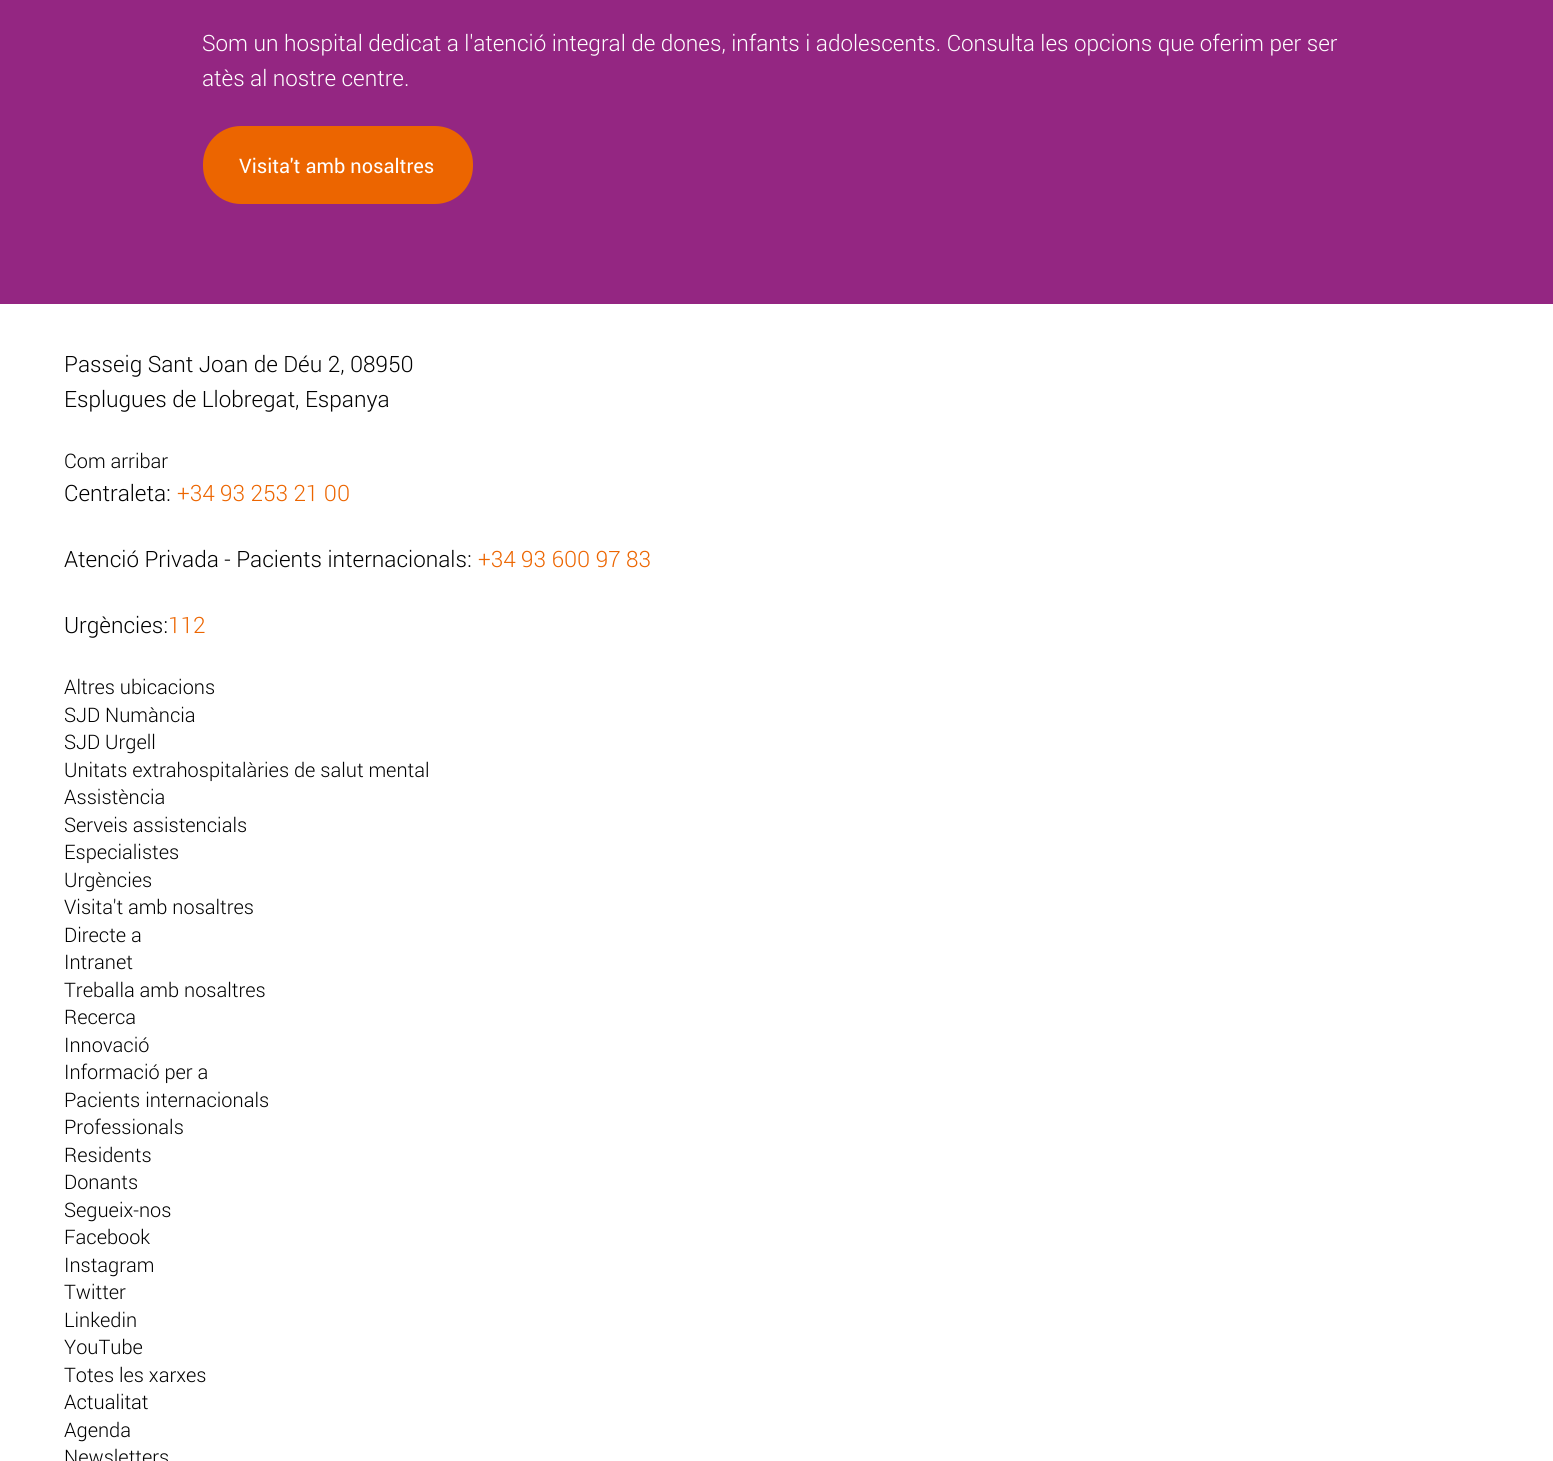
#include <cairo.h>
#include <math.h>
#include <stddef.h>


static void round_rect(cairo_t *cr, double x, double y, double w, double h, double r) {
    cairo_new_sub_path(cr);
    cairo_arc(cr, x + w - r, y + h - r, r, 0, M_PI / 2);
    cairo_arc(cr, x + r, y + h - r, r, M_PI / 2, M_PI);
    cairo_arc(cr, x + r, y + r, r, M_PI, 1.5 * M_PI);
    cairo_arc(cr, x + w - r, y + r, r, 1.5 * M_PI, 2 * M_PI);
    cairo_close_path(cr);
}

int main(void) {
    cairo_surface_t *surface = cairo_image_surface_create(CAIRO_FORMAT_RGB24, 1553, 1461);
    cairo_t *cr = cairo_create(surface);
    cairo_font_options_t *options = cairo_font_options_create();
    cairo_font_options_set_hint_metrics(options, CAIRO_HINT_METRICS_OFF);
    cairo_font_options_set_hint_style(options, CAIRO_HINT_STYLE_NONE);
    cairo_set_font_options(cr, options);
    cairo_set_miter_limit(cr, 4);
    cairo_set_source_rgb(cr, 1, 1, 1);
    cairo_paint(cr);
    cairo_set_source_rgb(cr, 0.58, 0.149, 0.51);
    cairo_rectangle(cr, 0, 0, 1553, 304);
    cairo_fill(cr);
    cairo_select_font_face(cr, "Roboto Light", CAIRO_FONT_SLANT_NORMAL, CAIRO_FONT_WEIGHT_NORMAL);
    cairo_set_font_size(cr, 22.5);
    cairo_set_source_rgb(cr, 1, 1, 1);
    cairo_move_to(cr, 202, 51);
    cairo_show_text(cr, "Som un hospital dedicat a l'atenció integral de dones, infants i adolescents. Consulta les opcions que oferim per ser");
    cairo_move_to(cr, 202, 86);
    cairo_show_text(cr, "atès al nostre centre.");
    cairo_set_source_rgb(cr, 0.925, 0.396, 0);
    round_rect(cr, 203, 126, 270, 78, 38);
    cairo_fill(cr);
    cairo_select_font_face(cr, "Roboto", CAIRO_FONT_SLANT_NORMAL, CAIRO_FONT_WEIGHT_NORMAL);
    cairo_set_font_size(cr, 20);
    cairo_set_source_rgb(cr, 1, 1, 1);
    cairo_move_to(cr, 239, 173);
    cairo_show_text(cr, "Visita't amb nosaltres");
    cairo_select_font_face(cr, "Roboto Light", CAIRO_FONT_SLANT_NORMAL, CAIRO_FONT_WEIGHT_NORMAL);
    cairo_set_font_size(cr, 22.5);
    cairo_set_source_rgb(cr, 0, 0, 0);
    cairo_move_to(cr, 64, 372);
    cairo_show_text(cr, "Passeig Sant Joan de Déu 2, 08950");
    cairo_move_to(cr, 64, 407);
    cairo_show_text(cr, "Esplugues de Llobregat, Espanya");
    cairo_set_font_size(cr, 20);
    cairo_move_to(cr, 64, 468);
    cairo_show_text(cr, "Com arribar");
    cairo_set_font_size(cr, 22.5);
    cairo_move_to(cr, 64, 501);
    cairo_show_text(cr, "Centraleta:");
    cairo_set_source_rgb(cr, 0.925, 0.396, 0);
    cairo_move_to(cr, 177, 501);
    cairo_show_text(cr, "+34 93 253 21 00");
    cairo_set_source_rgb(cr, 0, 0, 0);
    cairo_move_to(cr, 64, 567);
    cairo_show_text(cr, "Atenció Privada - Pacients internacionals:");
    cairo_set_source_rgb(cr, 0.925, 0.396, 0);
    cairo_move_to(cr, 478, 567);
    cairo_show_text(cr, "+34 93 600 97 83");
    cairo_set_source_rgb(cr, 0, 0, 0);
    cairo_move_to(cr, 64, 633);
    cairo_show_text(cr, "Urgències:");
    cairo_set_source_rgb(cr, 0.925, 0.396, 0);
    cairo_move_to(cr, 168, 633);
    cairo_show_text(cr, "112");
    cairo_set_font_size(cr, 20);
    cairo_set_source_rgb(cr, 0, 0, 0);
    cairo_move_to(cr, 64, 694);
    cairo_show_text(cr, "Altres ubicacions");
    cairo_move_to(cr, 64, 722);
    cairo_show_text(cr, "SJD Numància");
    cairo_move_to(cr, 64, 749);
    cairo_show_text(cr, "SJD Urgell");
    cairo_move_to(cr, 64, 777);
    cairo_show_text(cr, "Unitats extrahospitalàries de salut mental");
    cairo_move_to(cr, 64, 804);
    cairo_show_text(cr, "Assistència");
    cairo_move_to(cr, 64, 832);
    cairo_show_text(cr, "Serveis assistencials");
    cairo_move_to(cr, 64, 859);
    cairo_show_text(cr, "Especialistes");
    cairo_move_to(cr, 64, 887);
    cairo_show_text(cr, "Urgències");
    cairo_move_to(cr, 64, 914);
    cairo_show_text(cr, "Visita't amb nosaltres");
    cairo_move_to(cr, 64, 942);
    cairo_show_text(cr, "Directe a");
    cairo_move_to(cr, 64, 969);
    cairo_show_text(cr, "Intranet");
    cairo_move_to(cr, 64, 997);
    cairo_show_text(cr, "Treballa amb nosaltres");
    cairo_move_to(cr, 64, 1024);
    cairo_show_text(cr, "Recerca");
    cairo_move_to(cr, 64, 1052);
    cairo_show_text(cr, "Innovació");
    cairo_move_to(cr, 64, 1079);
    cairo_show_text(cr, "Informació per a");
    cairo_move_to(cr, 64, 1107);
    cairo_show_text(cr, "Pacients internacionals");
    cairo_move_to(cr, 64, 1134);
    cairo_show_text(cr, "Professionals");
    cairo_move_to(cr, 64, 1162);
    cairo_show_text(cr, "Residents");
    cairo_move_to(cr, 64, 1189);
    cairo_show_text(cr, "Donants");
    cairo_move_to(cr, 64, 1217);
    cairo_show_text(cr, "Segueix-nos");
    cairo_move_to(cr, 64, 1244);
    cairo_show_text(cr, "Facebook");
    cairo_move_to(cr, 64, 1272);
    cairo_show_text(cr, "Instagram");
    cairo_move_to(cr, 64, 1299);
    cairo_show_text(cr, "Twitter");
    cairo_move_to(cr, 64, 1327);
    cairo_show_text(cr, "Linkedin");
    cairo_move_to(cr, 64, 1354);
    cairo_show_text(cr, "YouTube");
    cairo_move_to(cr, 64, 1382);
    cairo_show_text(cr, "Totes les xarxes");
    cairo_move_to(cr, 64, 1409);
    cairo_show_text(cr, "Actualitat");
    cairo_move_to(cr, 64, 1437);
    cairo_show_text(cr, "Agenda");
    cairo_move_to(cr, 64, 1464);
    cairo_show_text(cr, "Newsletters");
    cairo_surface_write_to_png(surface, "page.png");
    cairo_font_options_destroy(options);
    cairo_destroy(cr);
    cairo_surface_destroy(surface);
    return 0;
}
